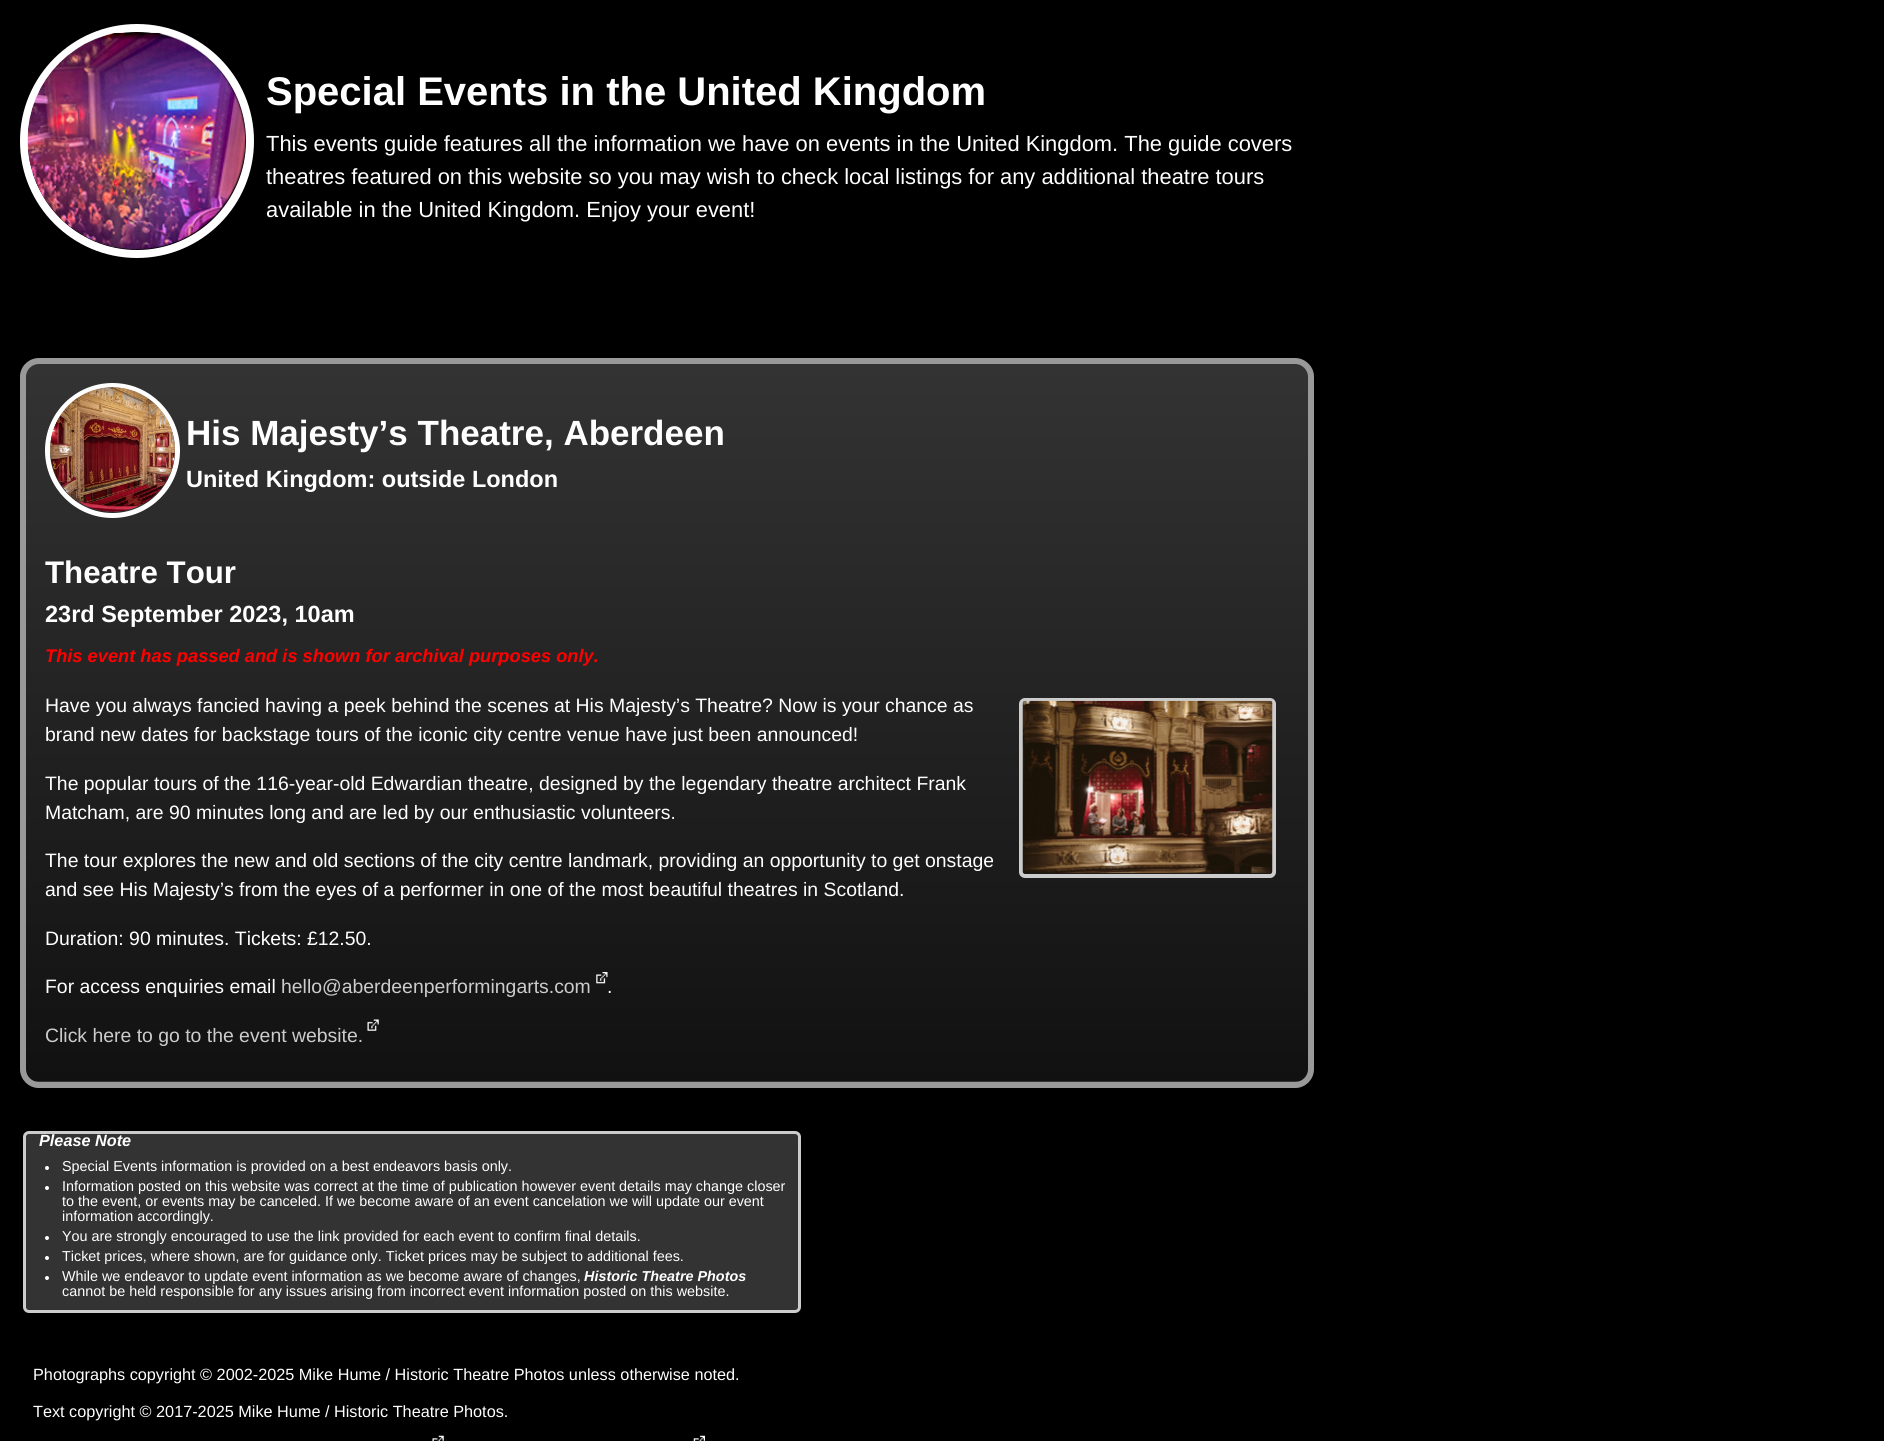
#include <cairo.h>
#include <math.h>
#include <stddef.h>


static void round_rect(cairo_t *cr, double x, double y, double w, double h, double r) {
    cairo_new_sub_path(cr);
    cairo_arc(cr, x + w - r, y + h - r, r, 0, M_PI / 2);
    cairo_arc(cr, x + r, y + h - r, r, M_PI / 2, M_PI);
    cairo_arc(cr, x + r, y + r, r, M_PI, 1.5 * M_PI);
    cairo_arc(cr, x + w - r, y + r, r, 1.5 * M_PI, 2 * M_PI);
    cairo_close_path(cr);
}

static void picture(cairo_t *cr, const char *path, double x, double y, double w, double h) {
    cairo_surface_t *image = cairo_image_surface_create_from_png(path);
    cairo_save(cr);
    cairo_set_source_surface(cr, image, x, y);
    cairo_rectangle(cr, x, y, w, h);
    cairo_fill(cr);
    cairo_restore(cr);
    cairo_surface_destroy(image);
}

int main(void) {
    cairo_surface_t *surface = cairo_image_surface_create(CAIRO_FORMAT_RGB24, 1884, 1441);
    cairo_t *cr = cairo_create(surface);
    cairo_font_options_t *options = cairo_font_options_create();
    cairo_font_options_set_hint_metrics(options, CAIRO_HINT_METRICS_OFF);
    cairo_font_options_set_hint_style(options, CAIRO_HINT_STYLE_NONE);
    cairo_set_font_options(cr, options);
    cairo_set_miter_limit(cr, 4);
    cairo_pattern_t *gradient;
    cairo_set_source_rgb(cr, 0, 0, 0);
    cairo_paint(cr);
    cairo_arc(cr, 137, 141, 113, 0, 2 * M_PI);
    cairo_set_source_rgb(cr, 1, 1, 1);
    cairo_set_line_width(cr, 8);
    cairo_stroke(cr);
    picture(cr, "img1.png", 27, 32, 219, 218);
    cairo_select_font_face(cr, "Liberation Sans", CAIRO_FONT_SLANT_NORMAL, CAIRO_FONT_WEIGHT_BOLD);
    cairo_set_font_size(cr, 40);
    cairo_move_to(cr, 266, 105);
    cairo_show_text(cr, "Special Events in the United Kingdom");
    cairo_select_font_face(cr, "Liberation Sans", CAIRO_FONT_SLANT_NORMAL, CAIRO_FONT_WEIGHT_NORMAL);
    cairo_set_font_size(cr, 21.9);
    cairo_move_to(cr, 266, 151);
    cairo_show_text(cr, "This events guide features all the information we have on events in the United Kingdom. The guide covers");
    cairo_move_to(cr, 266, 184);
    cairo_show_text(cr, "theatres featured on this website so you may wish to check local listings for any additional theatre tours");
    cairo_move_to(cr, 266, 217);
    cairo_show_text(cr, "available in the United Kingdom. Enjoy your event!");
    cairo_save(cr);
    round_rect(cr, 20, 358, 1294, 730, 19);
    cairo_clip(cr);
    gradient = cairo_pattern_create_linear(667, 364, 667, 1081);
    cairo_pattern_add_color_stop_rgba(gradient, 0, 0.2, 0.2, 0.2, 1);
    cairo_pattern_add_color_stop_rgba(gradient, 1, 0.067, 0.067, 0.067, 1);
    cairo_set_source(cr, gradient);
    cairo_pattern_destroy(gradient);
    cairo_rectangle(cr, 20, 364, 1294, 717);
    cairo_fill(cr);
    gradient = cairo_pattern_create_linear(667, 1081, 667, 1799);
    cairo_pattern_add_color_stop_rgba(gradient, 0, 0.2, 0.2, 0.2, 1);
    cairo_pattern_add_color_stop_rgba(gradient, 1, 0.067, 0.067, 0.067, 1);
    cairo_set_source(cr, gradient);
    cairo_pattern_destroy(gradient);
    cairo_rectangle(cr, 20, 1081, 1294, 7);
    cairo_fill(cr);
    cairo_restore(cr);
    round_rect(cr, 23, 361, 1288, 724, 16);
    cairo_set_source_rgb(cr, 0.6, 0.6, 0.6);
    cairo_set_line_width(cr, 6);
    cairo_stroke(cr);
    cairo_arc(cr, 112.5, 450.5, 65, 0, 2 * M_PI);
    cairo_set_source_rgb(cr, 1, 1, 1);
    cairo_set_line_width(cr, 5);
    cairo_stroke(cr);
    picture(cr, "img2.png", 50, 387, 125, 125);
    cairo_select_font_face(cr, "Liberation Sans", CAIRO_FONT_SLANT_NORMAL, CAIRO_FONT_WEIGHT_BOLD);
    cairo_set_font_size(cr, 35);
    cairo_move_to(cr, 186, 445);
    cairo_show_text(cr, "His Majesty’s Theatre, Aberdeen");
    cairo_set_font_size(cr, 23.5);
    cairo_move_to(cr, 186, 487);
    cairo_show_text(cr, "United Kingdom: outside London");
    cairo_set_font_size(cr, 31.25);
    cairo_move_to(cr, 45, 583);
    cairo_show_text(cr, "Theatre Tour");
    cairo_set_font_size(cr, 23.5);
    cairo_move_to(cr, 45, 622);
    cairo_show_text(cr, "23rd September 2023, 10am");
    cairo_select_font_face(cr, "Liberation Sans", CAIRO_FONT_SLANT_ITALIC, CAIRO_FONT_WEIGHT_BOLD);
    cairo_set_font_size(cr, 18.25);
    cairo_set_source_rgb(cr, 1, 0, 0);
    cairo_move_to(cr, 45, 662);
    cairo_show_text(cr, "This event has passed and is shown for archival purposes only.");
    cairo_select_font_face(cr, "Liberation Sans", CAIRO_FONT_SLANT_NORMAL, CAIRO_FONT_WEIGHT_NORMAL);
    cairo_set_font_size(cr, 19.4);
    cairo_set_source_rgb(cr, 1, 1, 1);
    cairo_move_to(cr, 45, 712);
    cairo_show_text(cr, "Have you always fancied having a peek behind the scenes at His Majesty’s Theatre? Now is your chance as");
    cairo_move_to(cr, 45, 741);
    cairo_show_text(cr, "brand new dates for backstage tours of the iconic city centre venue have just been announced!");
    round_rect(cr, 1021, 700, 253, 176, 4);
    cairo_set_source_rgb(cr, 0.8, 0.8, 0.8);
    cairo_set_line_width(cr, 4);
    cairo_stroke(cr);
    picture(cr, "img3.png", 1022, 700, 251, 174);
    cairo_set_source_rgb(cr, 1, 1, 1);
    cairo_move_to(cr, 45, 790);
    cairo_show_text(cr, "The popular tours of the 116-year-old Edwardian theatre, designed by the legendary theatre architect Frank");
    cairo_move_to(cr, 45, 819);
    cairo_show_text(cr, "Matcham, are 90 minutes long and are led by our enthusiastic volunteers.");
    cairo_move_to(cr, 45, 867);
    cairo_show_text(cr, "The tour explores the new and old sections of the city centre landmark, providing an opportunity to get onstage");
    cairo_move_to(cr, 45, 896);
    cairo_show_text(cr, "and see His Majesty’s from the eyes of a performer in one of the most beautiful theatres in Scotland.");
    cairo_move_to(cr, 45, 945);
    cairo_show_text(cr, "Duration: 90 minutes. Tickets: £12.50.");
    cairo_move_to(cr, 45, 993);
    cairo_show_text(cr, "For access enquiries email");
    cairo_set_source_rgb(cr, 0.8, 0.8, 0.8);
    cairo_move_to(cr, 281, 993);
    cairo_show_text(cr, "hello@aberdeenperformingarts.com");
    picture(cr, "img4.png", 596, 972, 12, 12);
    cairo_set_source_rgb(cr, 1, 1, 1);
    cairo_move_to(cr, 607, 993);
    cairo_show_text(cr, ".");
    picture(cr, "img5.png", 367, 1019, 12, 12);
    cairo_set_source_rgb(cr, 0.8, 0.8, 0.8);
    cairo_move_to(cr, 45, 1042);
    cairo_show_text(cr, "Click here to go to the event website.");
    cairo_set_source_rgb(cr, 0.2, 0.2, 0.2);
    round_rect(cr, 24.5, 1132.5, 775, 179, 4.5);
    cairo_fill_preserve(cr);
    cairo_set_source_rgb(cr, 0.8, 0.8, 0.8);
    cairo_set_line_width(cr, 3);
    cairo_stroke(cr);
    cairo_select_font_face(cr, "Liberation Sans", CAIRO_FONT_SLANT_ITALIC, CAIRO_FONT_WEIGHT_BOLD);
    cairo_set_font_size(cr, 16.25);
    cairo_set_source_rgb(cr, 1, 1, 1);
    cairo_move_to(cr, 39, 1146);
    cairo_show_text(cr, "Please Note");
    cairo_new_path(cr);
    cairo_arc(cr, 47, 1168, 2, 0, 2 * M_PI);
    cairo_fill(cr);
    cairo_select_font_face(cr, "Liberation Sans", CAIRO_FONT_SLANT_NORMAL, CAIRO_FONT_WEIGHT_NORMAL);
    cairo_set_font_size(cr, 14.38);
    cairo_move_to(cr, 62, 1171);
    cairo_show_text(cr, "Special Events information is provided on a best endeavors basis only.");
    cairo_new_path(cr);
    cairo_arc(cr, 47, 1188, 2, 0, 2 * M_PI);
    cairo_fill(cr);
    cairo_move_to(cr, 62, 1191);
    cairo_show_text(cr, "Information posted on this website was correct at the time of publication however event details may change closer");
    cairo_move_to(cr, 62, 1206);
    cairo_show_text(cr, "to the event, or events may be canceled. If we become aware of an event cancelation we will update our event");
    cairo_move_to(cr, 62, 1221);
    cairo_show_text(cr, "information accordingly.");
    cairo_new_path(cr);
    cairo_arc(cr, 47, 1238, 2, 0, 2 * M_PI);
    cairo_fill(cr);
    cairo_move_to(cr, 62, 1241);
    cairo_show_text(cr, "You are strongly encouraged to use the link provided for each event to confirm final details.");
    cairo_new_path(cr);
    cairo_arc(cr, 47, 1258, 2, 0, 2 * M_PI);
    cairo_fill(cr);
    cairo_move_to(cr, 62, 1261);
    cairo_show_text(cr, "Ticket prices, where shown, are for guidance only. Ticket prices may be subject to additional fees.");
    cairo_new_path(cr);
    cairo_arc(cr, 47, 1278, 2, 0, 2 * M_PI);
    cairo_fill(cr);
    cairo_move_to(cr, 62, 1281);
    cairo_show_text(cr, "While we endeavor to update event information as we become aware of changes,");
    cairo_select_font_face(cr, "Liberation Sans", CAIRO_FONT_SLANT_ITALIC, CAIRO_FONT_WEIGHT_BOLD);
    cairo_move_to(cr, 584, 1281);
    cairo_show_text(cr, "Historic Theatre Photos");
    cairo_select_font_face(cr, "Liberation Sans", CAIRO_FONT_SLANT_NORMAL, CAIRO_FONT_WEIGHT_NORMAL);
    cairo_move_to(cr, 62, 1296);
    cairo_show_text(cr, "cannot be held responsible for any issues arising from incorrect event information posted on this website.");
    cairo_set_font_size(cr, 16.25);
    cairo_move_to(cr, 33, 1380);
    cairo_show_text(cr, "Photographs copyright © 2002-2025 Mike Hume / Historic Theatre Photos unless otherwise noted.");
    cairo_move_to(cr, 33, 1417);
    cairo_show_text(cr, "Text copyright © 2017-2025 Mike Hume / Historic Theatre Photos.");
    picture(cr, "img6.png", 432, 1435, 12, 6);
    picture(cr, "img7.png", 693, 1435, 12, 6);
    cairo_surface_write_to_png(surface, "page.png");
    cairo_font_options_destroy(options);
    cairo_destroy(cr);
    cairo_surface_destroy(surface);
    return 0;
}
